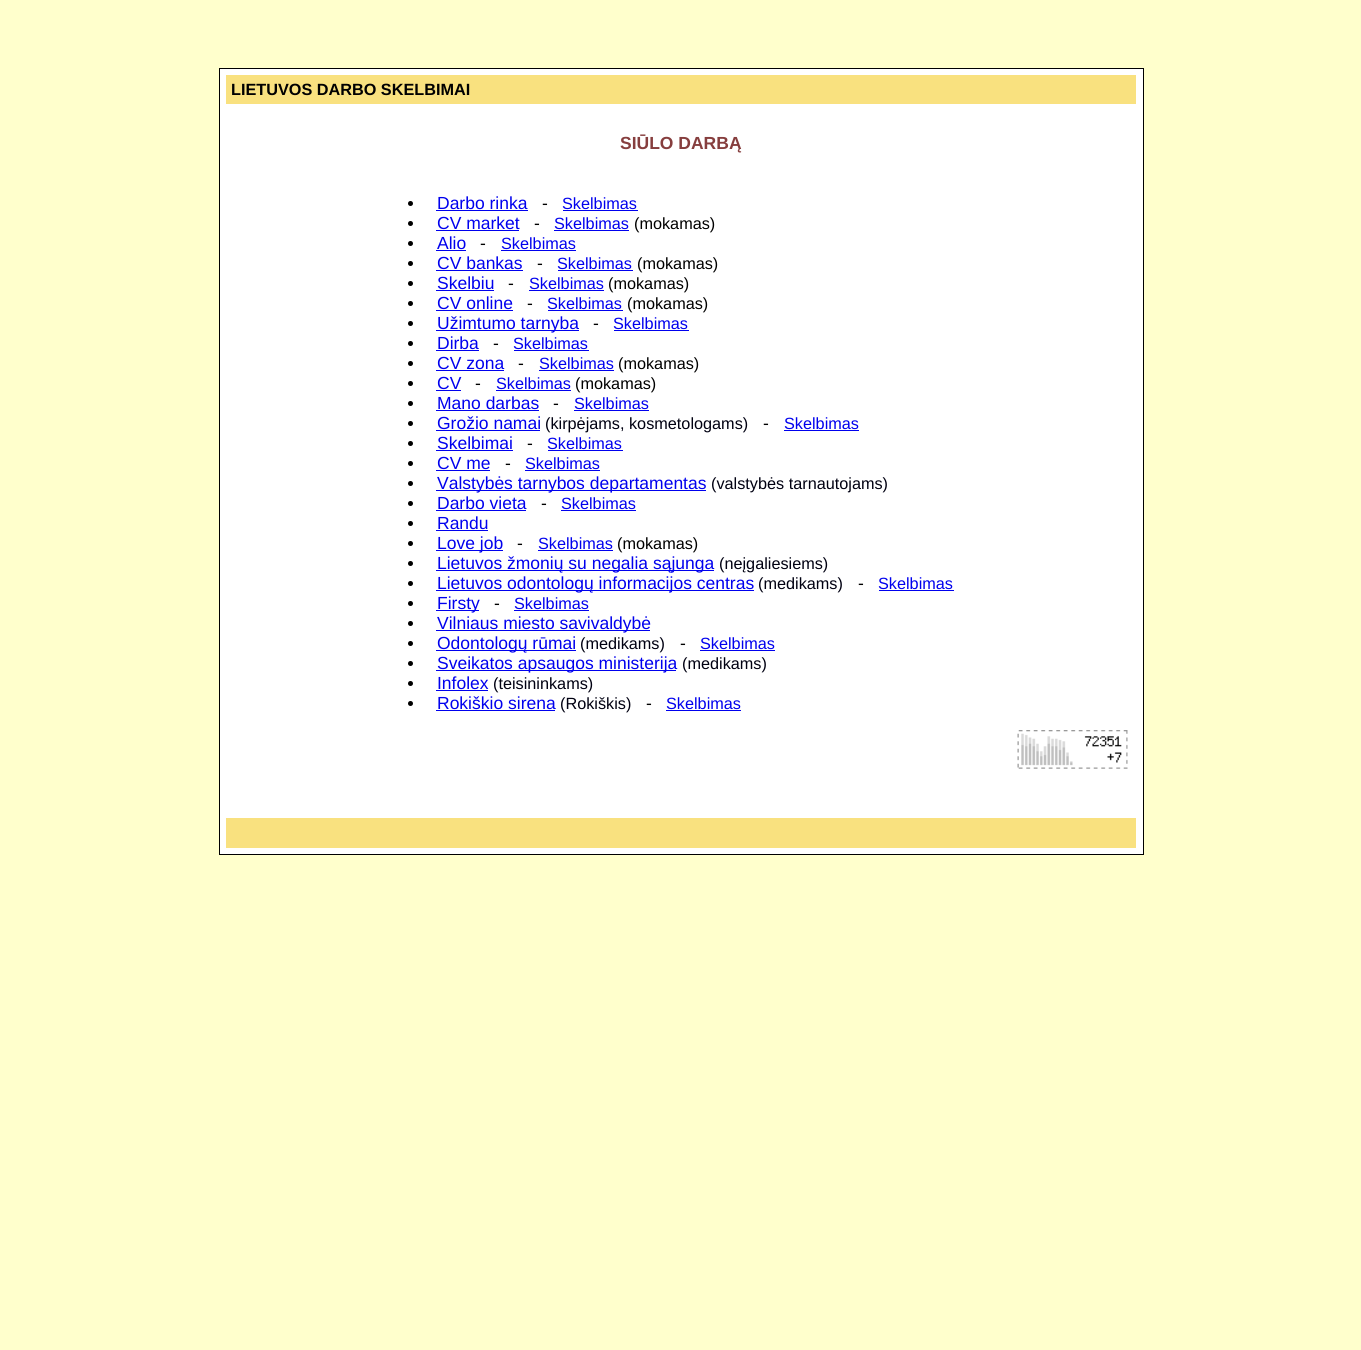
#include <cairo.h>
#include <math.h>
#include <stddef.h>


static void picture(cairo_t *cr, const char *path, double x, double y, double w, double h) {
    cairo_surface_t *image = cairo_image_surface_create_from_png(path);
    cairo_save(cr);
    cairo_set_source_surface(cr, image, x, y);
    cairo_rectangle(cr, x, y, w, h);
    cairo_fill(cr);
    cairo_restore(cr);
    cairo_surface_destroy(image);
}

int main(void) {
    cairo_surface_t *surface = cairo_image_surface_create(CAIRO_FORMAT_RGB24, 1361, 1350);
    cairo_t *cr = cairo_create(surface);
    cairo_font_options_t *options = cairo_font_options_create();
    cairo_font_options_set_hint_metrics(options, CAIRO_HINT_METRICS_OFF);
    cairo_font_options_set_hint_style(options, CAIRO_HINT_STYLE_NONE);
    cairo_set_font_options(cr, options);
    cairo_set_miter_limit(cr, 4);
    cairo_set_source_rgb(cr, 1, 1, 0.8);
    cairo_paint(cr);
    cairo_set_source_rgb(cr, 0, 0, 0);
    cairo_rectangle(cr, 219, 68, 925, 787);
    cairo_fill(cr);
    cairo_set_source_rgb(cr, 1, 1, 1);
    cairo_rectangle(cr, 220, 69, 923, 785);
    cairo_fill(cr);
    cairo_set_source_rgb(cr, 0.976, 0.882, 0.498);
    cairo_rectangle(cr, 226, 75, 910, 29);
    cairo_fill(cr);
    cairo_select_font_face(cr, "Liberation Sans", CAIRO_FONT_SLANT_NORMAL, CAIRO_FONT_WEIGHT_BOLD);
    cairo_set_font_size(cr, 16.25);
    cairo_set_source_rgb(cr, 0, 0, 0);
    cairo_move_to(cr, 231, 95);
    cairo_show_text(cr, "LIETUVOS DARBO SKELBIMAI");
    cairo_set_font_size(cr, 17.5);
    cairo_set_source_rgb(cr, 0.525, 0.243, 0.243);
    cairo_move_to(cr, 620, 149);
    cairo_show_text(cr, "SIŪLO DARBĄ");
    cairo_set_source_rgb(cr, 0, 0, 0);
    cairo_new_path(cr);
    cairo_arc(cr, 410.5, 203.5, 2.5, 0, 2 * M_PI);
    cairo_fill(cr);
    cairo_select_font_face(cr, "Liberation Sans", CAIRO_FONT_SLANT_NORMAL, CAIRO_FONT_WEIGHT_NORMAL);
    cairo_set_source_rgb(cr, 0, 0, 0.933);
    cairo_move_to(cr, 437, 209);
    cairo_show_text(cr, "Darbo rinka");
    cairo_rectangle(cr, 436, 210, 92, 1);
    cairo_fill(cr);
    cairo_set_source_rgb(cr, 0, 0, 0);
    cairo_move_to(cr, 542, 209);
    cairo_show_text(cr, "-");
    cairo_set_font_size(cr, 16.25);
    cairo_set_source_rgb(cr, 0, 0, 0.933);
    cairo_move_to(cr, 562, 209);
    cairo_show_text(cr, "Skelbimas");
    cairo_rectangle(cr, 563, 210, 75, 1);
    cairo_fill(cr);
    cairo_set_source_rgb(cr, 0, 0, 0);
    cairo_arc(cr, 410.5, 223.5, 2.5, 0, 2 * M_PI);
    cairo_fill(cr);
    cairo_set_font_size(cr, 17.5);
    cairo_set_source_rgb(cr, 0, 0, 0.933);
    cairo_move_to(cr, 437, 229);
    cairo_show_text(cr, "CV market");
    cairo_rectangle(cr, 436, 230, 83, 1);
    cairo_fill(cr);
    cairo_set_source_rgb(cr, 0, 0, 0);
    cairo_move_to(cr, 534, 229);
    cairo_show_text(cr, "-");
    cairo_set_font_size(cr, 16.25);
    cairo_set_source_rgb(cr, 0, 0, 0.933);
    cairo_move_to(cr, 554, 229);
    cairo_show_text(cr, "Skelbimas");
    cairo_rectangle(cr, 554, 230, 75, 1);
    cairo_fill(cr);
    cairo_set_source_rgb(cr, 0, 0, 0);
    cairo_move_to(cr, 634, 229);
    cairo_show_text(cr, "(mokamas)");
    cairo_new_path(cr);
    cairo_arc(cr, 410.5, 243.5, 2.5, 0, 2 * M_PI);
    cairo_fill(cr);
    cairo_set_font_size(cr, 17.5);
    cairo_set_source_rgb(cr, 0, 0, 0.933);
    cairo_move_to(cr, 437, 249);
    cairo_show_text(cr, "Alio");
    cairo_rectangle(cr, 436, 250, 30, 1);
    cairo_fill(cr);
    cairo_set_source_rgb(cr, 0, 0, 0);
    cairo_move_to(cr, 480, 249);
    cairo_show_text(cr, "-");
    cairo_set_font_size(cr, 16.25);
    cairo_set_source_rgb(cr, 0, 0, 0.933);
    cairo_move_to(cr, 501, 249);
    cairo_show_text(cr, "Skelbimas");
    cairo_rectangle(cr, 501, 250, 75, 1);
    cairo_fill(cr);
    cairo_set_source_rgb(cr, 0, 0, 0);
    cairo_arc(cr, 410.5, 263.5, 2.5, 0, 2 * M_PI);
    cairo_fill(cr);
    cairo_set_font_size(cr, 17.5);
    cairo_set_source_rgb(cr, 0, 0, 0.933);
    cairo_move_to(cr, 437, 269);
    cairo_show_text(cr, "CV bankas");
    cairo_rectangle(cr, 436, 270, 87, 1);
    cairo_fill(cr);
    cairo_set_source_rgb(cr, 0, 0, 0);
    cairo_move_to(cr, 537, 269);
    cairo_show_text(cr, "-");
    cairo_set_font_size(cr, 16.25);
    cairo_set_source_rgb(cr, 0, 0, 0.933);
    cairo_move_to(cr, 557, 269);
    cairo_show_text(cr, "Skelbimas");
    cairo_rectangle(cr, 558, 270, 75, 1);
    cairo_fill(cr);
    cairo_set_source_rgb(cr, 0, 0, 0);
    cairo_move_to(cr, 637, 269);
    cairo_show_text(cr, "(mokamas)");
    cairo_new_path(cr);
    cairo_arc(cr, 410.5, 283.5, 2.5, 0, 2 * M_PI);
    cairo_fill(cr);
    cairo_set_font_size(cr, 17.5);
    cairo_set_source_rgb(cr, 0, 0, 0.933);
    cairo_move_to(cr, 437, 289);
    cairo_show_text(cr, "Skelbiu");
    cairo_rectangle(cr, 436, 290, 58, 1);
    cairo_fill(cr);
    cairo_set_source_rgb(cr, 0, 0, 0);
    cairo_move_to(cr, 508, 289);
    cairo_show_text(cr, "-");
    cairo_set_font_size(cr, 16.25);
    cairo_set_source_rgb(cr, 0, 0, 0.933);
    cairo_move_to(cr, 529, 289);
    cairo_show_text(cr, "Skelbimas");
    cairo_rectangle(cr, 529, 290, 75, 1);
    cairo_fill(cr);
    cairo_set_source_rgb(cr, 0, 0, 0);
    cairo_move_to(cr, 608, 289);
    cairo_show_text(cr, "(mokamas)");
    cairo_new_path(cr);
    cairo_arc(cr, 410.5, 303.5, 2.5, 0, 2 * M_PI);
    cairo_fill(cr);
    cairo_set_font_size(cr, 17.5);
    cairo_set_source_rgb(cr, 0, 0, 0.933);
    cairo_move_to(cr, 437, 309);
    cairo_show_text(cr, "CV online");
    cairo_rectangle(cr, 436, 310, 77, 1);
    cairo_fill(cr);
    cairo_set_source_rgb(cr, 0, 0, 0);
    cairo_move_to(cr, 527, 309);
    cairo_show_text(cr, "-");
    cairo_set_font_size(cr, 16.25);
    cairo_set_source_rgb(cr, 0, 0, 0.933);
    cairo_move_to(cr, 547, 309);
    cairo_show_text(cr, "Skelbimas");
    cairo_rectangle(cr, 548, 310, 75, 1);
    cairo_fill(cr);
    cairo_set_source_rgb(cr, 0, 0, 0);
    cairo_move_to(cr, 627, 309);
    cairo_show_text(cr, "(mokamas)");
    cairo_new_path(cr);
    cairo_arc(cr, 410.5, 323.5, 2.5, 0, 2 * M_PI);
    cairo_fill(cr);
    cairo_set_source_rgb(cr, 0, 0, 0.933);
    cairo_rectangle(cr, 436, 330, 143, 1);
    cairo_fill(cr);
    cairo_set_font_size(cr, 17.5);
    cairo_move_to(cr, 437, 329);
    cairo_show_text(cr, "Užimtumo tarnyba");
    cairo_set_source_rgb(cr, 0, 0, 0);
    cairo_move_to(cr, 593, 329);
    cairo_show_text(cr, "-");
    cairo_set_font_size(cr, 16.25);
    cairo_set_source_rgb(cr, 0, 0, 0.933);
    cairo_move_to(cr, 613, 329);
    cairo_show_text(cr, "Skelbimas");
    cairo_rectangle(cr, 614, 330, 75, 1);
    cairo_fill(cr);
    cairo_set_source_rgb(cr, 0, 0, 0);
    cairo_arc(cr, 410.5, 343.5, 2.5, 0, 2 * M_PI);
    cairo_fill(cr);
    cairo_set_font_size(cr, 17.5);
    cairo_set_source_rgb(cr, 0, 0, 0.933);
    cairo_move_to(cr, 437, 349);
    cairo_show_text(cr, "Dirba");
    cairo_rectangle(cr, 436, 350, 43, 1);
    cairo_fill(cr);
    cairo_set_source_rgb(cr, 0, 0, 0);
    cairo_move_to(cr, 493, 349);
    cairo_show_text(cr, "-");
    cairo_set_font_size(cr, 16.25);
    cairo_set_source_rgb(cr, 0, 0, 0.933);
    cairo_move_to(cr, 513, 349);
    cairo_show_text(cr, "Skelbimas");
    cairo_rectangle(cr, 514, 350, 75, 1);
    cairo_fill(cr);
    cairo_set_source_rgb(cr, 0, 0, 0);
    cairo_arc(cr, 410.5, 363.5, 2.5, 0, 2 * M_PI);
    cairo_fill(cr);
    cairo_set_font_size(cr, 17.5);
    cairo_set_source_rgb(cr, 0, 0, 0.933);
    cairo_move_to(cr, 437, 369);
    cairo_show_text(cr, "CV zona");
    cairo_rectangle(cr, 436, 370, 68, 1);
    cairo_fill(cr);
    cairo_set_source_rgb(cr, 0, 0, 0);
    cairo_move_to(cr, 518, 369);
    cairo_show_text(cr, "-");
    cairo_set_font_size(cr, 16.25);
    cairo_set_source_rgb(cr, 0, 0, 0.933);
    cairo_move_to(cr, 539, 369);
    cairo_show_text(cr, "Skelbimas");
    cairo_rectangle(cr, 539, 370, 75, 1);
    cairo_fill(cr);
    cairo_set_source_rgb(cr, 0, 0, 0);
    cairo_move_to(cr, 618, 369);
    cairo_show_text(cr, "(mokamas)");
    cairo_new_path(cr);
    cairo_arc(cr, 410.5, 383.5, 2.5, 0, 2 * M_PI);
    cairo_fill(cr);
    cairo_set_font_size(cr, 17.5);
    cairo_set_source_rgb(cr, 0, 0, 0.933);
    cairo_move_to(cr, 437, 389);
    cairo_show_text(cr, "CV");
    cairo_rectangle(cr, 436, 390, 25, 1);
    cairo_fill(cr);
    cairo_set_source_rgb(cr, 0, 0, 0);
    cairo_move_to(cr, 475, 389);
    cairo_show_text(cr, "-");
    cairo_set_font_size(cr, 16.25);
    cairo_set_source_rgb(cr, 0, 0, 0.933);
    cairo_move_to(cr, 496, 389);
    cairo_show_text(cr, "Skelbimas");
    cairo_rectangle(cr, 496, 390, 75, 1);
    cairo_fill(cr);
    cairo_set_source_rgb(cr, 0, 0, 0);
    cairo_move_to(cr, 575, 389);
    cairo_show_text(cr, "(mokamas)");
    cairo_new_path(cr);
    cairo_arc(cr, 410.5, 403.5, 2.5, 0, 2 * M_PI);
    cairo_fill(cr);
    cairo_set_font_size(cr, 17.5);
    cairo_set_source_rgb(cr, 0, 0, 0.933);
    cairo_move_to(cr, 437, 409);
    cairo_show_text(cr, "Mano darbas");
    cairo_rectangle(cr, 436, 410, 103, 1);
    cairo_fill(cr);
    cairo_set_source_rgb(cr, 0, 0, 0);
    cairo_move_to(cr, 553, 409);
    cairo_show_text(cr, "-");
    cairo_set_font_size(cr, 16.25);
    cairo_set_source_rgb(cr, 0, 0, 0.933);
    cairo_move_to(cr, 574, 409);
    cairo_show_text(cr, "Skelbimas");
    cairo_rectangle(cr, 574, 410, 75, 1);
    cairo_fill(cr);
    cairo_set_source_rgb(cr, 0, 0, 0);
    cairo_arc(cr, 410.5, 423.5, 2.5, 0, 2 * M_PI);
    cairo_fill(cr);
    cairo_set_font_size(cr, 17.5);
    cairo_set_source_rgb(cr, 0, 0, 0.933);
    cairo_move_to(cr, 437, 429);
    cairo_show_text(cr, "Grožio namai");
    cairo_rectangle(cr, 436, 430, 104, 1);
    cairo_fill(cr);
    cairo_set_font_size(cr, 16.25);
    cairo_set_source_rgb(cr, 0, 0, 0.067);
    cairo_move_to(cr, 545, 429);
    cairo_show_text(cr, "(kirpėjams, kosmetologams)");
    cairo_set_font_size(cr, 17.5);
    cairo_set_source_rgb(cr, 0, 0, 0);
    cairo_move_to(cr, 763, 429);
    cairo_show_text(cr, "-");
    cairo_set_font_size(cr, 16.25);
    cairo_set_source_rgb(cr, 0, 0, 0.933);
    cairo_move_to(cr, 784, 429);
    cairo_show_text(cr, "Skelbimas");
    cairo_rectangle(cr, 784, 430, 75, 1);
    cairo_fill(cr);
    cairo_set_source_rgb(cr, 0, 0, 0);
    cairo_arc(cr, 410.5, 443.5, 2.5, 0, 2 * M_PI);
    cairo_fill(cr);
    cairo_set_font_size(cr, 17.5);
    cairo_set_source_rgb(cr, 0, 0, 0.933);
    cairo_move_to(cr, 437, 449);
    cairo_show_text(cr, "Skelbimai");
    cairo_rectangle(cr, 436, 450, 77, 1);
    cairo_fill(cr);
    cairo_set_source_rgb(cr, 0, 0, 0);
    cairo_move_to(cr, 527, 449);
    cairo_show_text(cr, "-");
    cairo_set_font_size(cr, 16.25);
    cairo_set_source_rgb(cr, 0, 0, 0.933);
    cairo_move_to(cr, 547, 449);
    cairo_show_text(cr, "Skelbimas");
    cairo_rectangle(cr, 548, 450, 75, 1);
    cairo_fill(cr);
    cairo_set_source_rgb(cr, 0, 0, 0);
    cairo_arc(cr, 410.5, 463.5, 2.5, 0, 2 * M_PI);
    cairo_fill(cr);
    cairo_set_font_size(cr, 17.5);
    cairo_set_source_rgb(cr, 0, 0, 0.933);
    cairo_move_to(cr, 437, 469);
    cairo_show_text(cr, "CV me");
    cairo_rectangle(cr, 436, 470, 54, 1);
    cairo_fill(cr);
    cairo_set_source_rgb(cr, 0, 0, 0);
    cairo_move_to(cr, 505, 469);
    cairo_show_text(cr, "-");
    cairo_set_font_size(cr, 16.25);
    cairo_set_source_rgb(cr, 0, 0, 0.933);
    cairo_move_to(cr, 525, 469);
    cairo_show_text(cr, "Skelbimas");
    cairo_rectangle(cr, 525, 470, 75, 1);
    cairo_fill(cr);
    cairo_set_source_rgb(cr, 0, 0, 0);
    cairo_arc(cr, 410.5, 483.5, 2.5, 0, 2 * M_PI);
    cairo_fill(cr);
    cairo_set_source_rgb(cr, 0, 0, 0.933);
    cairo_rectangle(cr, 436, 490, 270, 1);
    cairo_fill(cr);
    cairo_set_font_size(cr, 17.5);
    cairo_move_to(cr, 437, 489);
    cairo_show_text(cr, "Valstybės tarnybos departamentas");
    cairo_set_font_size(cr, 16.25);
    cairo_set_source_rgb(cr, 0, 0, 0.067);
    cairo_move_to(cr, 711, 489);
    cairo_show_text(cr, "(valstybės tarnautojams)");
    cairo_set_source_rgb(cr, 0, 0, 0);
    cairo_new_path(cr);
    cairo_arc(cr, 410.5, 503.5, 2.5, 0, 2 * M_PI);
    cairo_fill(cr);
    cairo_set_font_size(cr, 17.5);
    cairo_set_source_rgb(cr, 0, 0, 0.933);
    cairo_move_to(cr, 437, 509);
    cairo_show_text(cr, "Darbo vieta");
    cairo_rectangle(cr, 436, 510, 90, 1);
    cairo_fill(cr);
    cairo_set_source_rgb(cr, 0, 0, 0);
    cairo_move_to(cr, 541, 509);
    cairo_show_text(cr, "-");
    cairo_set_font_size(cr, 16.25);
    cairo_set_source_rgb(cr, 0, 0, 0.933);
    cairo_move_to(cr, 561, 509);
    cairo_show_text(cr, "Skelbimas");
    cairo_rectangle(cr, 561, 510, 75, 1);
    cairo_fill(cr);
    cairo_set_source_rgb(cr, 0, 0, 0);
    cairo_arc(cr, 410.5, 523.5, 2.5, 0, 2 * M_PI);
    cairo_fill(cr);
    cairo_set_font_size(cr, 17.5);
    cairo_set_source_rgb(cr, 0, 0, 0.933);
    cairo_move_to(cr, 437, 529);
    cairo_show_text(cr, "Randu");
    cairo_rectangle(cr, 436, 530, 52, 1);
    cairo_fill(cr);
    cairo_set_source_rgb(cr, 0, 0, 0);
    cairo_arc(cr, 410.5, 543.5, 2.5, 0, 2 * M_PI);
    cairo_fill(cr);
    cairo_set_source_rgb(cr, 0, 0, 0.933);
    cairo_rectangle(cr, 436, 550, 67, 1);
    cairo_fill(cr);
    cairo_move_to(cr, 437, 549);
    cairo_show_text(cr, "Love job");
    cairo_set_source_rgb(cr, 0, 0, 0);
    cairo_move_to(cr, 517, 549);
    cairo_show_text(cr, "-");
    cairo_set_font_size(cr, 16.25);
    cairo_set_source_rgb(cr, 0, 0, 0.933);
    cairo_move_to(cr, 538, 549);
    cairo_show_text(cr, "Skelbimas");
    cairo_rectangle(cr, 538, 550, 75, 1);
    cairo_fill(cr);
    cairo_set_source_rgb(cr, 0, 0, 0);
    cairo_move_to(cr, 617, 549);
    cairo_show_text(cr, "(mokamas)");
    cairo_new_path(cr);
    cairo_arc(cr, 410.5, 563.5, 2.5, 0, 2 * M_PI);
    cairo_fill(cr);
    cairo_set_source_rgb(cr, 0, 0, 0.933);
    cairo_rectangle(cr, 436, 570, 278, 1);
    cairo_fill(cr);
    cairo_set_font_size(cr, 17.5);
    cairo_move_to(cr, 437, 569);
    cairo_show_text(cr, "Lietuvos žmonių su negalia sąjunga");
    cairo_set_font_size(cr, 16.25);
    cairo_set_source_rgb(cr, 0, 0, 0.067);
    cairo_move_to(cr, 719, 569);
    cairo_show_text(cr, "(neįgaliesiems)");
    cairo_set_source_rgb(cr, 0, 0, 0);
    cairo_new_path(cr);
    cairo_arc(cr, 410.5, 583.5, 2.5, 0, 2 * M_PI);
    cairo_fill(cr);
    cairo_set_source_rgb(cr, 0, 0, 0.933);
    cairo_rectangle(cr, 436, 590, 318, 1);
    cairo_fill(cr);
    cairo_set_font_size(cr, 17.5);
    cairo_move_to(cr, 437, 589);
    cairo_show_text(cr, "Lietuvos odontologų informacijos centras");
    cairo_set_font_size(cr, 16.25);
    cairo_set_source_rgb(cr, 0, 0, 0.067);
    cairo_move_to(cr, 758, 589);
    cairo_show_text(cr, "(medikams)");
    cairo_set_font_size(cr, 17.5);
    cairo_set_source_rgb(cr, 0, 0, 0);
    cairo_move_to(cr, 858, 589);
    cairo_show_text(cr, "-");
    cairo_set_font_size(cr, 16.25);
    cairo_set_source_rgb(cr, 0, 0, 0.933);
    cairo_move_to(cr, 878, 589);
    cairo_show_text(cr, "Skelbimas");
    cairo_rectangle(cr, 879, 590, 75, 1);
    cairo_fill(cr);
    cairo_set_source_rgb(cr, 0, 0, 0);
    cairo_arc(cr, 410.5, 603.5, 2.5, 0, 2 * M_PI);
    cairo_fill(cr);
    cairo_set_source_rgb(cr, 0, 0, 0.933);
    cairo_rectangle(cr, 436, 610, 43, 1);
    cairo_fill(cr);
    cairo_set_font_size(cr, 17.5);
    cairo_move_to(cr, 437, 609);
    cairo_show_text(cr, "Firsty");
    cairo_set_source_rgb(cr, 0, 0, 0);
    cairo_move_to(cr, 494, 609);
    cairo_show_text(cr, "-");
    cairo_set_font_size(cr, 16.25);
    cairo_set_source_rgb(cr, 0, 0, 0.933);
    cairo_move_to(cr, 514, 609);
    cairo_show_text(cr, "Skelbimas");
    cairo_rectangle(cr, 514, 610, 75, 1);
    cairo_fill(cr);
    cairo_set_source_rgb(cr, 0, 0, 0);
    cairo_arc(cr, 410.5, 623.5, 2.5, 0, 2 * M_PI);
    cairo_fill(cr);
    cairo_set_source_rgb(cr, 0, 0, 0.933);
    cairo_rectangle(cr, 436, 630, 214, 1);
    cairo_fill(cr);
    cairo_set_font_size(cr, 17.5);
    cairo_move_to(cr, 437, 629);
    cairo_show_text(cr, "Vilniaus miesto savivaldybė");
    cairo_set_source_rgb(cr, 0, 0, 0);
    cairo_new_path(cr);
    cairo_arc(cr, 410.5, 643.5, 2.5, 0, 2 * M_PI);
    cairo_fill(cr);
    cairo_set_source_rgb(cr, 0, 0, 0.933);
    cairo_rectangle(cr, 436, 650, 140, 1);
    cairo_fill(cr);
    cairo_move_to(cr, 437, 649);
    cairo_show_text(cr, "Odontologų rūmai");
    cairo_set_font_size(cr, 16.25);
    cairo_set_source_rgb(cr, 0, 0, 0.067);
    cairo_move_to(cr, 580, 649);
    cairo_show_text(cr, "(medikams)");
    cairo_set_font_size(cr, 17.5);
    cairo_set_source_rgb(cr, 0, 0, 0);
    cairo_move_to(cr, 680, 649);
    cairo_show_text(cr, "-");
    cairo_set_font_size(cr, 16.25);
    cairo_set_source_rgb(cr, 0, 0, 0.933);
    cairo_move_to(cr, 700, 649);
    cairo_show_text(cr, "Skelbimas");
    cairo_rectangle(cr, 700, 650, 75, 1);
    cairo_fill(cr);
    cairo_set_source_rgb(cr, 0, 0, 0);
    cairo_arc(cr, 410.5, 663.5, 2.5, 0, 2 * M_PI);
    cairo_fill(cr);
    cairo_set_source_rgb(cr, 0, 0, 0.933);
    cairo_rectangle(cr, 436, 670, 240, 1);
    cairo_fill(cr);
    cairo_set_font_size(cr, 17.5);
    cairo_move_to(cr, 437, 669);
    cairo_show_text(cr, "Sveikatos apsaugos ministerija");
    cairo_set_font_size(cr, 16.25);
    cairo_set_source_rgb(cr, 0, 0, 0.067);
    cairo_move_to(cr, 682, 669);
    cairo_show_text(cr, "(medikams)");
    cairo_set_source_rgb(cr, 0, 0, 0);
    cairo_new_path(cr);
    cairo_arc(cr, 410.5, 683.5, 2.5, 0, 2 * M_PI);
    cairo_fill(cr);
    cairo_set_font_size(cr, 17.5);
    cairo_set_source_rgb(cr, 0, 0, 0.933);
    cairo_move_to(cr, 437, 689);
    cairo_show_text(cr, "Infolex");
    cairo_rectangle(cr, 436, 690, 52, 1);
    cairo_fill(cr);
    cairo_set_font_size(cr, 16.25);
    cairo_set_source_rgb(cr, 0, 0, 0.067);
    cairo_move_to(cr, 493, 689);
    cairo_show_text(cr, "(teisininkams)");
    cairo_set_source_rgb(cr, 0, 0, 0);
    cairo_new_path(cr);
    cairo_arc(cr, 410.5, 703.5, 2.5, 0, 2 * M_PI);
    cairo_fill(cr);
    cairo_set_font_size(cr, 17.5);
    cairo_set_source_rgb(cr, 0, 0, 0.933);
    cairo_move_to(cr, 437, 709);
    cairo_show_text(cr, "Rokiškio sirena");
    cairo_rectangle(cr, 436, 710, 119, 1);
    cairo_fill(cr);
    cairo_set_font_size(cr, 16.25);
    cairo_set_source_rgb(cr, 0, 0, 0.067);
    cairo_move_to(cr, 560, 709);
    cairo_show_text(cr, "(Rokiškis)");
    cairo_set_font_size(cr, 17.5);
    cairo_set_source_rgb(cr, 0, 0, 0);
    cairo_move_to(cr, 646, 709);
    cairo_show_text(cr, "-");
    cairo_set_font_size(cr, 16.25);
    cairo_set_source_rgb(cr, 0, 0, 0.933);
    cairo_move_to(cr, 666, 709);
    cairo_show_text(cr, "Skelbimas");
    cairo_rectangle(cr, 666, 710, 75, 1);
    cairo_fill(cr);
    picture(cr, "img1.png", 1017, 730, 111, 39);
    cairo_set_source_rgb(cr, 0.976, 0.882, 0.498);
    cairo_rectangle(cr, 226, 818, 910, 30);
    cairo_fill(cr);
    cairo_surface_write_to_png(surface, "page.png");
    cairo_font_options_destroy(options);
    cairo_destroy(cr);
    cairo_surface_destroy(surface);
    return 0;
}
